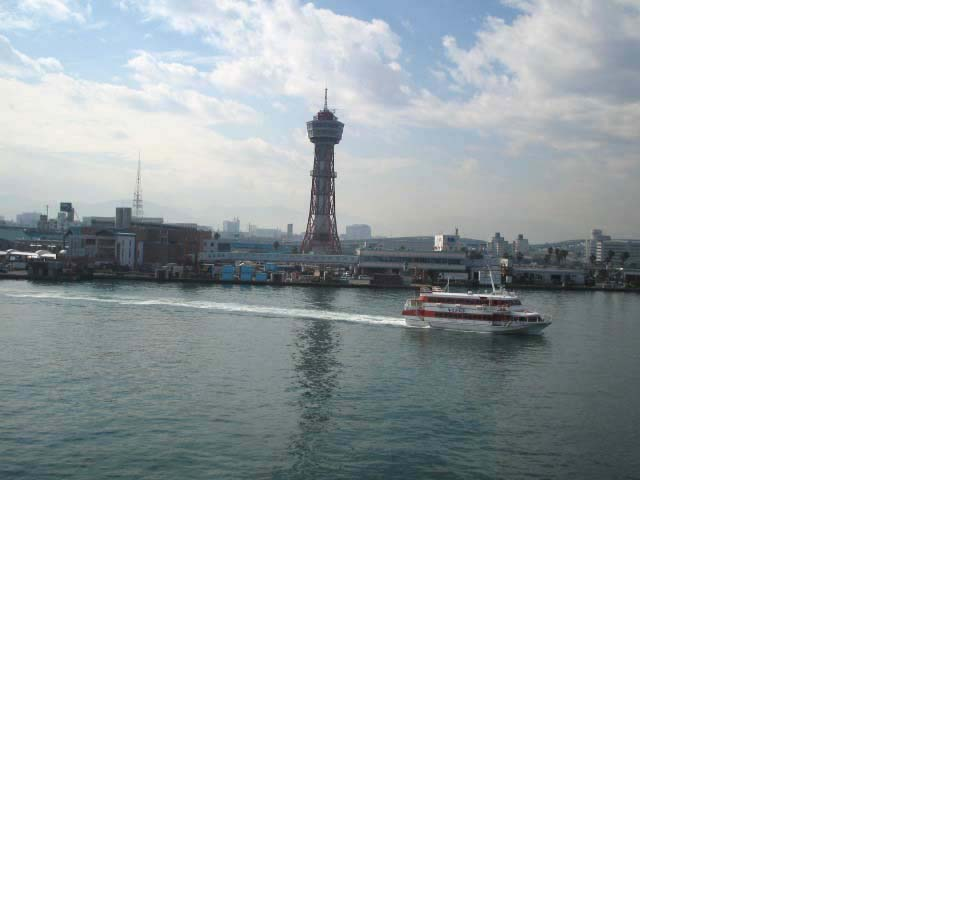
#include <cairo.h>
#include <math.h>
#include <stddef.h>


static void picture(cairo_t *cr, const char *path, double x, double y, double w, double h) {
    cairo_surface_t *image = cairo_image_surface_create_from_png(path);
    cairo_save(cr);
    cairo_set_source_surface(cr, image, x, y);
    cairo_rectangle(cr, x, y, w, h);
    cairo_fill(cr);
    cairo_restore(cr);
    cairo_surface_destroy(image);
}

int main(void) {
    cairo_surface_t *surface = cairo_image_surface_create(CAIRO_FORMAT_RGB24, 973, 912);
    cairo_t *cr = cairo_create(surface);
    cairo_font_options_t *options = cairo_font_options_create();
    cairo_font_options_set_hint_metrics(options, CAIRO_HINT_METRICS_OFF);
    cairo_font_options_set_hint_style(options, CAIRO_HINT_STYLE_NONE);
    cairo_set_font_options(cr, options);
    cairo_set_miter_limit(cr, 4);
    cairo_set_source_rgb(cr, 1, 1, 1);
    cairo_paint(cr);
    picture(cr, "img1.png", 0, 0, 640, 480);
    cairo_surface_write_to_png(surface, "page.png");
    cairo_font_options_destroy(options);
    cairo_destroy(cr);
    cairo_surface_destroy(surface);
    return 0;
}
